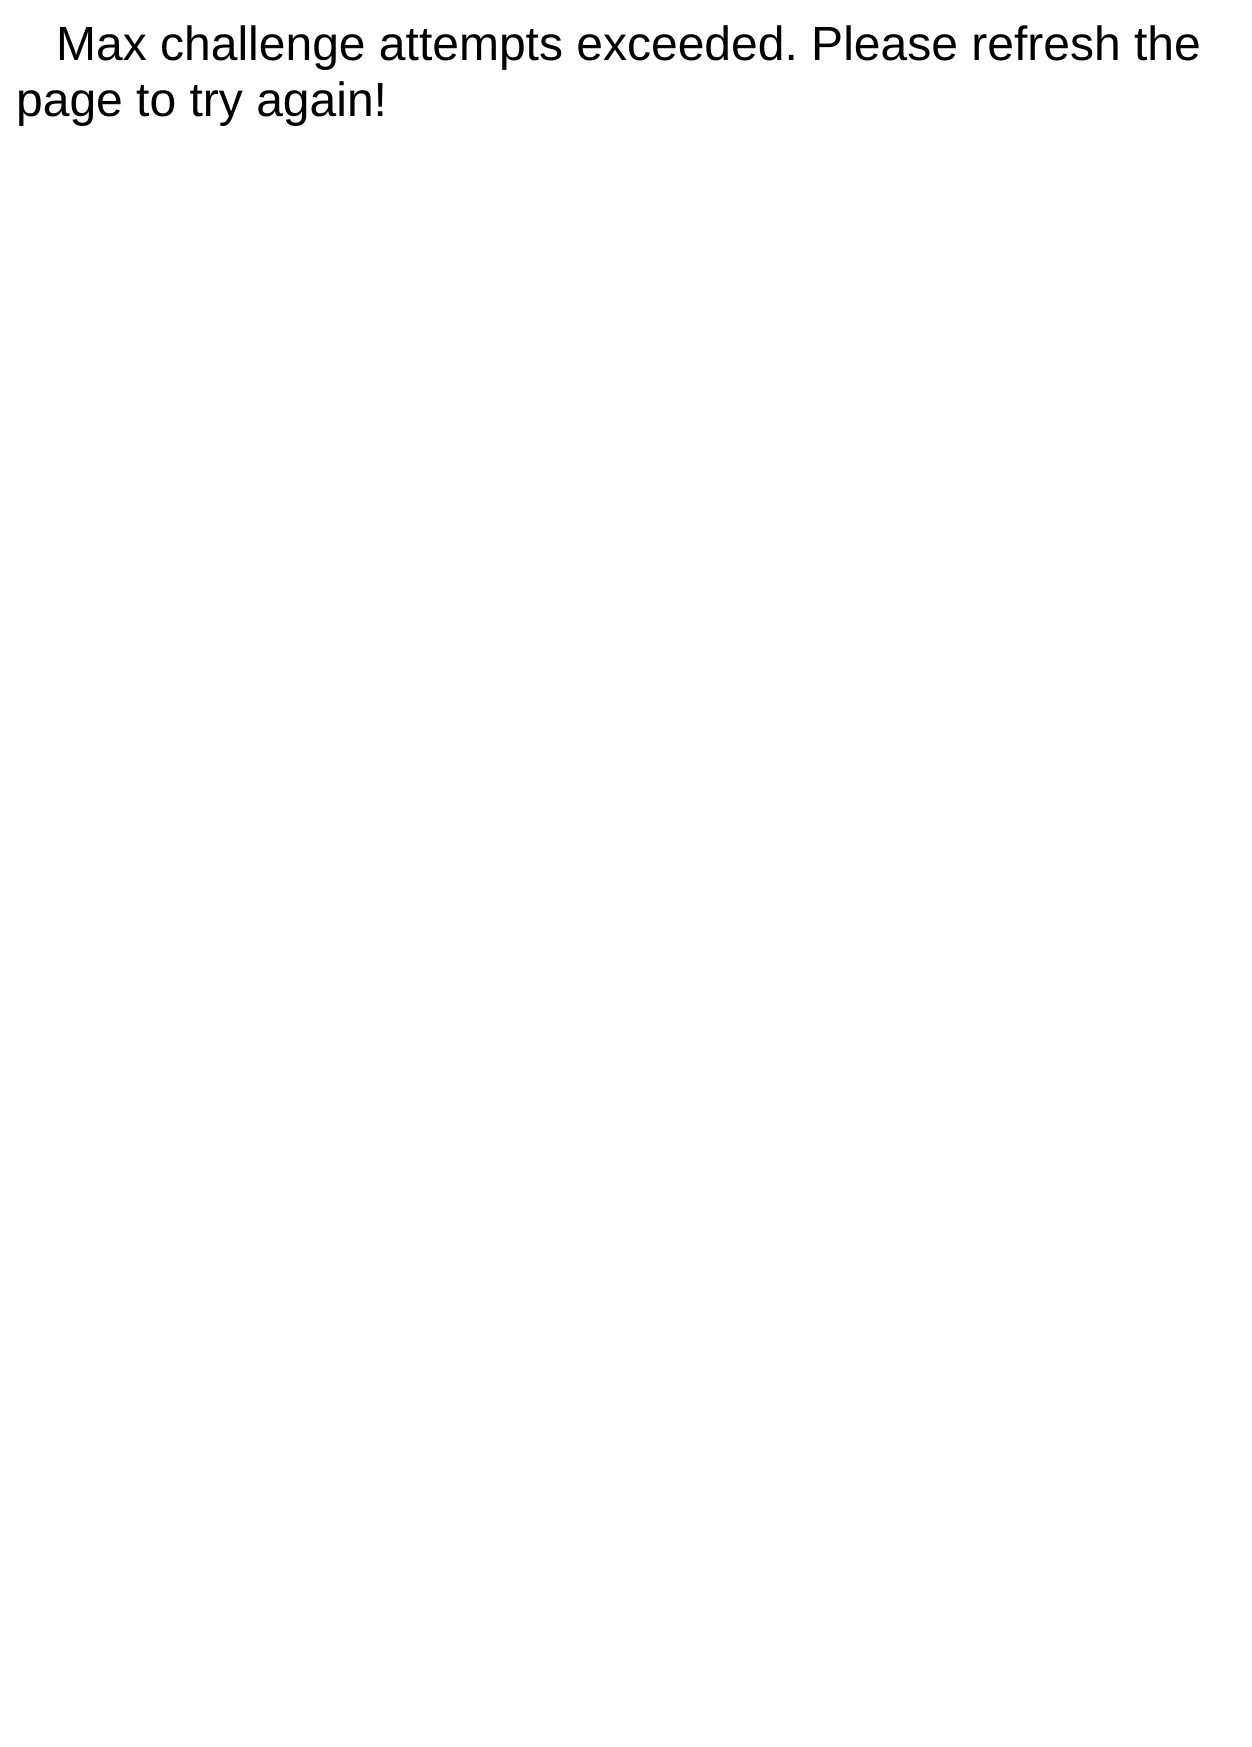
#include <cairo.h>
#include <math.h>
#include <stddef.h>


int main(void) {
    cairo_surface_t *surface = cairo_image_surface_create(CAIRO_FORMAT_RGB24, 1252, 1747);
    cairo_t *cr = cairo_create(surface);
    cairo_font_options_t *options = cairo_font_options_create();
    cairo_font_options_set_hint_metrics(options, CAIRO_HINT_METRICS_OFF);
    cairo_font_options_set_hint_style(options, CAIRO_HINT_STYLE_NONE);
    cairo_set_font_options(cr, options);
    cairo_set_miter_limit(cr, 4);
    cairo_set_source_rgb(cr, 1, 1, 1);
    cairo_paint(cr);
    cairo_select_font_face(cr, "Liberation Sans", CAIRO_FONT_SLANT_NORMAL, CAIRO_FONT_WEIGHT_NORMAL);
    cairo_set_font_size(cr, 48);
    cairo_set_source_rgb(cr, 0, 0, 0);
    cairo_move_to(cr, 56, 60);
    cairo_show_text(cr, "Max challenge attempts exceeded. Please refresh the");
    cairo_move_to(cr, 16, 116);
    cairo_show_text(cr, "page to try again!");
    cairo_surface_write_to_png(surface, "page.png");
    cairo_font_options_destroy(options);
    cairo_destroy(cr);
    cairo_surface_destroy(surface);
    return 0;
}
